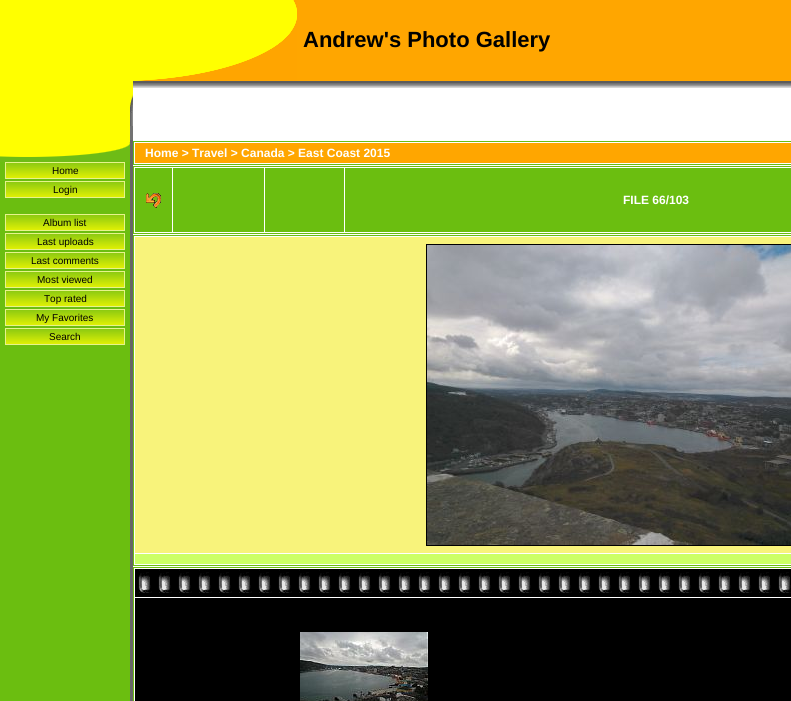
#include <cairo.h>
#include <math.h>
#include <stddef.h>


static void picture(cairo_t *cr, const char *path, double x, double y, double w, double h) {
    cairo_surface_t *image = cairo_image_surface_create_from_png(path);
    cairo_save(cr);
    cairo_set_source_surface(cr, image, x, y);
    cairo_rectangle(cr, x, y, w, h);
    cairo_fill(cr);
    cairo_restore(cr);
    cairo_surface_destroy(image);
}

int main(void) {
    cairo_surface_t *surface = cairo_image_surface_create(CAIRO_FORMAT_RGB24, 791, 701);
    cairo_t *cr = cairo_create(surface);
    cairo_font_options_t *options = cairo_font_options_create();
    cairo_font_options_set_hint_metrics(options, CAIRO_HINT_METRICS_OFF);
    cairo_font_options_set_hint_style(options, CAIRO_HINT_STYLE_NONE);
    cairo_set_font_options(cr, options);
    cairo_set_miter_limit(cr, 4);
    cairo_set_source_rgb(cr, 1, 1, 1);
    cairo_paint(cr);
    cairo_set_source_rgb(cr, 1, 1, 0);
    cairo_rectangle(cr, 0, 0, 133, 81);
    cairo_fill(cr);
    cairo_set_source_rgb(cr, 1, 0.651, 0);
    cairo_rectangle(cr, 297, 0, 494, 81);
    cairo_fill(cr);
    picture(cr, "img1.png", 133, 0, 164, 81);
    cairo_select_font_face(cr, "Liberation Sans", CAIRO_FONT_SLANT_NORMAL, CAIRO_FONT_WEIGHT_BOLD);
    cairo_set_font_size(cr, 22);
    cairo_set_source_rgb(cr, 0, 0, 0);
    cairo_move_to(cr, 303, 47);
    cairo_show_text(cr, "Andrew's Photo Gallery");
    cairo_set_source_rgb(cr, 1, 1, 0);
    cairo_rectangle(cr, 0, 81, 130, 59);
    cairo_fill(cr);
    picture(cr, "img2.png", 130, 81, 3, 45);
    picture(cr, "img3.png", 133, 81, 658, 7);
    cairo_set_source_rgb(cr, 0.451, 0.451, 0.451);
    cairo_rectangle(cr, 130, 126, 3, 14);
    cairo_fill(cr);
    cairo_set_source_rgb(cr, 0.42, 0.745, 0.063);
    cairo_rectangle(cr, 0, 162, 130, 539);
    cairo_fill(cr);
    picture(cr, "img4.png", 0, 140, 24, 22);
    picture(cr, "img5.png", 24, 140, 8, 22);
    picture(cr, "img6.png", 32, 140, 98, 22);
    picture(cr, "img7.png", 6, 163, 118, 15);
    cairo_rectangle(cr, 5.5, 162.5, 119, 16);
    cairo_set_source_rgb(cr, 0.906, 0.953, 0.549);
    cairo_set_line_width(cr, 1);
    cairo_stroke(cr);
    cairo_select_font_face(cr, "Liberation Sans", CAIRO_FONT_SLANT_NORMAL, CAIRO_FONT_WEIGHT_NORMAL);
    cairo_set_font_size(cr, 10);
    cairo_set_source_rgb(cr, 0, 0, 0);
    cairo_move_to(cr, 52, 174);
    cairo_show_text(cr, "Home");
    picture(cr, "img7.png", 6, 182, 118, 15);
    cairo_rectangle(cr, 5.5, 181.5, 119, 16);
    cairo_set_source_rgb(cr, 0.906, 0.953, 0.549);
    cairo_stroke(cr);
    cairo_set_source_rgb(cr, 0, 0, 0);
    cairo_move_to(cr, 53, 193);
    cairo_show_text(cr, "Login");
    picture(cr, "img7.png", 6, 215, 118, 15);
    cairo_rectangle(cr, 5.5, 214.5, 119, 16);
    cairo_set_source_rgb(cr, 0.906, 0.953, 0.549);
    cairo_stroke(cr);
    cairo_set_source_rgb(cr, 0, 0, 0);
    cairo_move_to(cr, 43, 226);
    cairo_show_text(cr, "Album list");
    picture(cr, "img7.png", 6, 234, 118, 15);
    cairo_rectangle(cr, 5.5, 233.5, 119, 16);
    cairo_set_source_rgb(cr, 0.906, 0.953, 0.549);
    cairo_stroke(cr);
    cairo_set_source_rgb(cr, 0, 0, 0);
    cairo_move_to(cr, 37, 245);
    cairo_show_text(cr, "Last uploads");
    picture(cr, "img7.png", 6, 253, 118, 15);
    cairo_rectangle(cr, 5.5, 252.5, 119, 16);
    cairo_set_source_rgb(cr, 0.906, 0.953, 0.549);
    cairo_stroke(cr);
    cairo_set_source_rgb(cr, 0, 0, 0);
    cairo_move_to(cr, 31, 264);
    cairo_show_text(cr, "Last comments");
    picture(cr, "img7.png", 6, 272, 118, 15);
    cairo_rectangle(cr, 5.5, 271.5, 119, 16);
    cairo_set_source_rgb(cr, 0.906, 0.953, 0.549);
    cairo_stroke(cr);
    cairo_set_source_rgb(cr, 0, 0, 0);
    cairo_move_to(cr, 37, 283);
    cairo_show_text(cr, "Most viewed");
    picture(cr, "img7.png", 6, 291, 118, 15);
    cairo_rectangle(cr, 5.5, 290.5, 119, 16);
    cairo_set_source_rgb(cr, 0.906, 0.953, 0.549);
    cairo_stroke(cr);
    cairo_set_source_rgb(cr, 0, 0, 0);
    cairo_move_to(cr, 44, 302);
    cairo_show_text(cr, "Top rated");
    picture(cr, "img7.png", 6, 310, 118, 15);
    cairo_rectangle(cr, 5.5, 309.5, 119, 16);
    cairo_set_source_rgb(cr, 0.906, 0.953, 0.549);
    cairo_stroke(cr);
    cairo_set_source_rgb(cr, 0, 0, 0);
    cairo_move_to(cr, 36, 321);
    cairo_show_text(cr, "My Favorites");
    picture(cr, "img7.png", 6, 329, 118, 15);
    cairo_rectangle(cr, 5.5, 328.5, 119, 16);
    cairo_set_source_rgb(cr, 0.906, 0.953, 0.549);
    cairo_stroke(cr);
    cairo_set_source_rgb(cr, 0, 0, 0);
    cairo_move_to(cr, 49, 340);
    cairo_show_text(cr, "Search");
    cairo_set_source_rgb(cr, 0.4, 0.4, 0.4);
    cairo_rectangle(cr, 130, 140, 3, 561);
    cairo_fill(cr);
    cairo_rectangle(cr, 133.5, 141.5, 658, 23);
    cairo_set_source_rgb(cr, 0.42, 0.745, 0.063);
    cairo_stroke(cr);
    cairo_set_source_rgb(cr, 1, 0.651, 0);
    cairo_rectangle(cr, 135, 143, 656, 20);
    cairo_fill(cr);
    cairo_select_font_face(cr, "Liberation Sans", CAIRO_FONT_SLANT_NORMAL, CAIRO_FONT_WEIGHT_BOLD);
    cairo_set_font_size(cr, 12);
    cairo_set_source_rgb(cr, 1, 1, 1);
    cairo_move_to(cr, 145, 157);
    cairo_show_text(cr, "Home > Travel > Canada > East Coast 2015");
    cairo_rectangle(cr, 133.5, 166.5, 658, 67);
    cairo_set_source_rgb(cr, 0.42, 0.745, 0.063);
    cairo_stroke(cr);
    cairo_rectangle(cr, 135, 168, 37, 64);
    cairo_fill(cr);
    picture(cr, "img8.png", 146, 193, 15, 15);
    cairo_rectangle(cr, 173, 168, 91, 64);
    cairo_fill(cr);
    cairo_rectangle(cr, 265, 168, 79, 64);
    cairo_fill(cr);
    cairo_rectangle(cr, 345, 168, 446, 64);
    cairo_fill(cr);
    cairo_set_source_rgb(cr, 1, 1, 1);
    cairo_move_to(cr, 623, 204);
    cairo_show_text(cr, "FILE 66/103");
    cairo_rectangle(cr, 133.5, 235.5, 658, 330);
    cairo_set_source_rgb(cr, 0.42, 0.745, 0.063);
    cairo_stroke(cr);
    cairo_set_source_rgb(cr, 0.969, 0.953, 0.482);
    cairo_rectangle(cr, 135, 237, 656, 316);
    cairo_fill(cr);
    cairo_rectangle(cr, 426.5, 244.5, 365, 301);
    cairo_set_source_rgb(cr, 0, 0, 0);
    cairo_stroke(cr);
    picture(cr, "img9.png", 427, 245, 364, 300);
    cairo_set_source_rgb(cr, 0.8, 1, 0.4);
    cairo_rectangle(cr, 135, 554, 656, 10);
    cairo_fill(cr);
    cairo_rectangle(cr, 133.5, 567.5, 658, 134);
    cairo_set_source_rgb(cr, 0.42, 0.745, 0.063);
    cairo_stroke(cr);
    cairo_set_source_rgb(cr, 0, 0, 0);
    cairo_rectangle(cr, 135, 569, 656, 28);
    cairo_fill(cr);
    picture(cr, "img10.png", 138, 569, 653, 24);
    cairo_rectangle(cr, 135, 598, 656, 103);
    cairo_fill(cr);
    picture(cr, "img11.png", 300, 632, 128, 69);
    cairo_surface_write_to_png(surface, "page.png");
    cairo_font_options_destroy(options);
    cairo_destroy(cr);
    cairo_surface_destroy(surface);
    return 0;
}
